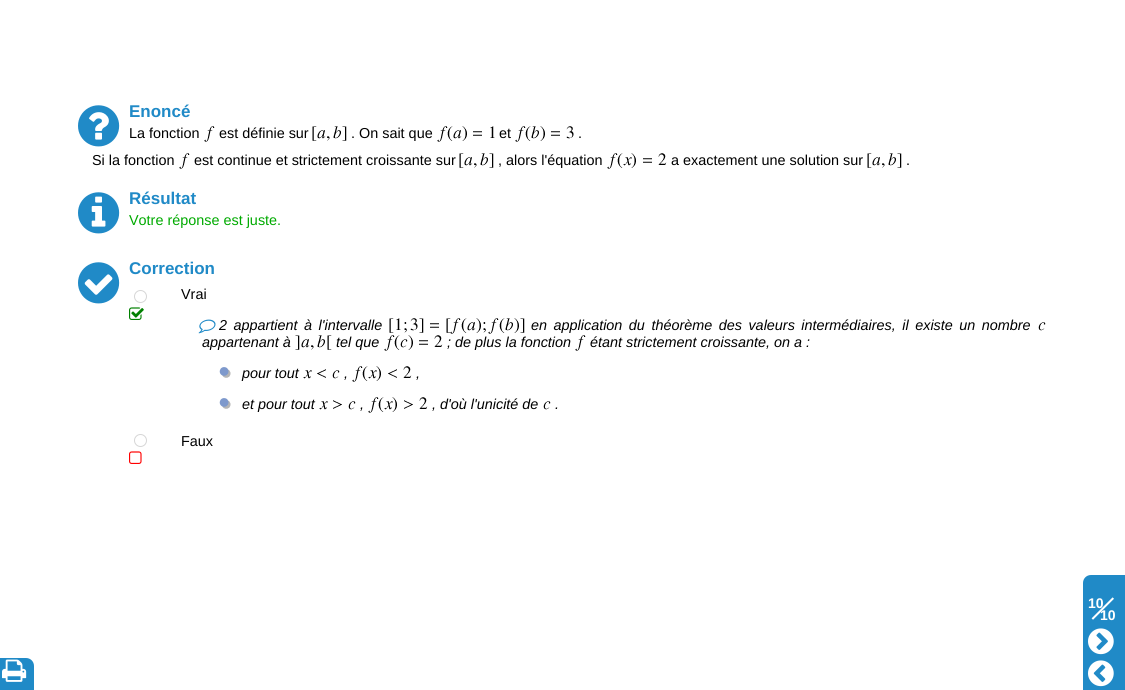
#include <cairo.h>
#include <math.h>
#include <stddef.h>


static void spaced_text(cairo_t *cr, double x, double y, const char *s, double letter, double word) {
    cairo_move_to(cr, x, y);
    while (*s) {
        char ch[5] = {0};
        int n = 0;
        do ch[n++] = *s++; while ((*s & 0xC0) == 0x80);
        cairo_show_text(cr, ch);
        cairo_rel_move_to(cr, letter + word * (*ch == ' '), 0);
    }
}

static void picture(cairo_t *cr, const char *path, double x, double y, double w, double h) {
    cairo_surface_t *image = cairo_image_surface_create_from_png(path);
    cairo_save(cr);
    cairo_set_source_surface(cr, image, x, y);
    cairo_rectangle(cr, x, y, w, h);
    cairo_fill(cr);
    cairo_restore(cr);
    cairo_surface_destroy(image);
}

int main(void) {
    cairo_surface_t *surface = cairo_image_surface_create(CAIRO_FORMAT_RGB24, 1125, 690);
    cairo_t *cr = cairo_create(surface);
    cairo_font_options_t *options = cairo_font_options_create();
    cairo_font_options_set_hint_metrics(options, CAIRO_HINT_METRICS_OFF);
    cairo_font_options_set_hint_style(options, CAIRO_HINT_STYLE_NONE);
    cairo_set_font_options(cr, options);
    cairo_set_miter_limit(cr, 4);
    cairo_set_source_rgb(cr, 1, 1, 1);
    cairo_paint(cr);
    picture(cr, "img1.png", 78, 105, 42, 42);
    cairo_select_font_face(cr, "Liberation Sans", CAIRO_FONT_SLANT_NORMAL, CAIRO_FONT_WEIGHT_BOLD);
    cairo_set_font_size(cr, 17);
    cairo_set_source_rgb(cr, 0.125, 0.541, 0.78);
    cairo_move_to(cr, 129, 117);
    cairo_show_text(cr, "Enoncé");
    cairo_select_font_face(cr, "Liberation Sans", CAIRO_FONT_SLANT_NORMAL, CAIRO_FONT_WEIGHT_NORMAL);
    cairo_set_font_size(cr, 14.4);
    cairo_set_source_rgb(cr, 0, 0, 0);
    cairo_move_to(cr, 129, 138);
    cairo_show_text(cr, "La fonction");
    picture(cr, "img2.png", 204, 126, 11, 16);
    cairo_move_to(cr, 219, 138);
    cairo_show_text(cr, "est définie sur");
    picture(cr, "img3.png", 312, 126, 35, 15);
    cairo_move_to(cr, 351, 138);
    cairo_show_text(cr, ". On sait que");
    picture(cr, "img4.png", 437, 126, 58, 16);
    cairo_move_to(cr, 499, 138);
    cairo_show_text(cr, "et");
    picture(cr, "img5.png", 515, 126, 59, 16);
    cairo_move_to(cr, 578, 138);
    cairo_show_text(cr, ".");
    cairo_move_to(cr, 92, 165);
    cairo_show_text(cr, "Si la fonction");
    picture(cr, "img2.png", 179, 153, 11, 16);
    cairo_move_to(cr, 194, 165);
    cairo_show_text(cr, "est continue et strictement croissante sur");
    picture(cr, "img3.png", 459, 153, 35, 15);
    cairo_move_to(cr, 498, 165);
    cairo_show_text(cr, ", alors l'équation");
    picture(cr, "img6.png", 607, 153, 60, 16);
    cairo_move_to(cr, 671, 165);
    cairo_show_text(cr, "a exactement une solution sur");
    picture(cr, "img3.png", 867, 153, 35, 15);
    cairo_move_to(cr, 906, 165);
    cairo_show_text(cr, ".");
    picture(cr, "img7.png", 78, 192, 42, 42);
    cairo_select_font_face(cr, "Liberation Sans", CAIRO_FONT_SLANT_NORMAL, CAIRO_FONT_WEIGHT_BOLD);
    cairo_set_font_size(cr, 17);
    cairo_set_source_rgb(cr, 0.125, 0.541, 0.78);
    cairo_move_to(cr, 129, 204);
    cairo_show_text(cr, "Résultat");
    cairo_select_font_face(cr, "Liberation Sans", CAIRO_FONT_SLANT_NORMAL, CAIRO_FONT_WEIGHT_NORMAL);
    cairo_set_font_size(cr, 14.4);
    cairo_set_source_rgb(cr, 0, 0.667, 0);
    cairo_move_to(cr, 129, 225);
    cairo_show_text(cr, "Votre réponse est juste.");
    picture(cr, "img8.png", 78, 262, 42, 42);
    cairo_select_font_face(cr, "Liberation Sans", CAIRO_FONT_SLANT_NORMAL, CAIRO_FONT_WEIGHT_BOLD);
    cairo_set_font_size(cr, 17);
    cairo_set_source_rgb(cr, 0.125, 0.541, 0.78);
    cairo_move_to(cr, 129, 274);
    cairo_show_text(cr, "Correction");
    cairo_new_path(cr);
    cairo_arc(cr, 140.5, 296.5, 6, 0, 2 * M_PI);
    cairo_set_source_rgb(cr, 0.839, 0.839, 0.839);
    cairo_set_line_width(cr, 1);
    cairo_stroke(cr);
    picture(cr, "img9.png", 129, 307, 15, 13);
    cairo_select_font_face(cr, "Liberation Sans", CAIRO_FONT_SLANT_NORMAL, CAIRO_FONT_WEIGHT_NORMAL);
    cairo_set_font_size(cr, 14.4);
    cairo_set_source_rgb(cr, 0, 0, 0);
    cairo_move_to(cr, 181, 299);
    cairo_show_text(cr, "Vrai");
    picture(cr, "img10.png", 198, 319, 18, 15);
    cairo_select_font_face(cr, "Liberation Sans", CAIRO_FONT_SLANT_ITALIC, CAIRO_FONT_WEIGHT_NORMAL);
    spaced_text(cr, 219, 330, "2 appartient à l'intervalle", 0, 2.5);
    picture(cr, "img11.png", 389, 318, 136, 16);
    spaced_text(cr, 531, 330, "en application du théorème des valeurs intermédiaires, il existe un nombre", 0, 2.5);
    picture(cr, "img12.png", 1038, 322, 8, 9);
    cairo_move_to(cr, 202, 347);
    cairo_show_text(cr, "appartenant à");
    picture(cr, "img13.png", 295, 335, 37, 15);
    cairo_move_to(cr, 336, 347);
    cairo_show_text(cr, "tel que");
    picture(cr, "img14.png", 384, 335, 59, 16);
    cairo_move_to(cr, 447, 347);
    cairo_show_text(cr, "; de plus la fonction");
    picture(cr, "img2.png", 575, 335, 11, 16);
    cairo_move_to(cr, 590, 347);
    cairo_show_text(cr, "étant strictement croissante, on a :");
    picture(cr, "img15.png", 219, 367, 12, 11);
    cairo_move_to(cr, 242, 378);
    cairo_show_text(cr, "pour tout");
    picture(cr, "img16.png", 303, 369, 37, 10);
    cairo_move_to(cr, 344, 378);
    cairo_show_text(cr, ",");
    picture(cr, "img17.png", 352, 366, 60, 16);
    cairo_move_to(cr, 416, 378);
    cairo_show_text(cr, ",");
    picture(cr, "img15.png", 219, 398, 12, 11);
    cairo_move_to(cr, 242, 409);
    cairo_show_text(cr, "et pour tout");
    picture(cr, "img18.png", 319, 400, 37, 10);
    cairo_move_to(cr, 360, 409);
    cairo_show_text(cr, ",");
    picture(cr, "img19.png", 368, 397, 60, 16);
    cairo_move_to(cr, 432, 409);
    cairo_show_text(cr, ", d'où l'unicité de");
    picture(cr, "img12.png", 543, 401, 8, 9);
    cairo_move_to(cr, 555, 409);
    cairo_show_text(cr, ".");
    cairo_new_path(cr);
    cairo_arc(cr, 140.5, 440.5, 6, 0, 2 * M_PI);
    cairo_set_source_rgb(cr, 0.839, 0.839, 0.839);
    cairo_stroke(cr);
    picture(cr, "img20.png", 129, 451, 13, 13);
    cairo_select_font_face(cr, "Liberation Sans", CAIRO_FONT_SLANT_NORMAL, CAIRO_FONT_WEIGHT_NORMAL);
    cairo_set_source_rgb(cr, 0, 0, 0);
    cairo_move_to(cr, 181, 446);
    cairo_show_text(cr, "Faux");
    cairo_set_source_rgb(cr, 0.125, 0.541, 0.78);
    cairo_new_path(cr);
    cairo_move_to(cr, 1091, 575);
    cairo_line_to(cr, 1125, 575);
    cairo_line_to(cr, 1125, 690);
    cairo_line_to(cr, 1083, 690);
    cairo_line_to(cr, 1083, 583);
    cairo_curve_to(cr, 1083, 578.5, 1086.5, 575, 1091, 575);
    cairo_close_path(cr);
    cairo_fill(cr);
    picture(cr, "img21.png", 1091, 597, 23, 23);
    cairo_select_font_face(cr, "Liberation Sans", CAIRO_FONT_SLANT_NORMAL, CAIRO_FONT_WEIGHT_BOLD);
    cairo_set_font_size(cr, 14);
    cairo_set_source_rgb(cr, 1, 1, 1);
    cairo_move_to(cr, 1088, 608);
    cairo_show_text(cr, "10");
    cairo_move_to(cr, 1100, 620);
    cairo_show_text(cr, "10");
    picture(cr, "img22.png", 1088, 628, 26, 27);
    picture(cr, "img23.png", 1088, 660, 26, 27);
    cairo_set_source_rgb(cr, 0.125, 0.541, 0.78);
    cairo_new_path(cr);
    cairo_move_to(cr, 0, 658);
    cairo_line_to(cr, 26, 658);
    cairo_curve_to(cr, 30.5, 658, 34, 661.5, 34, 666);
    cairo_line_to(cr, 34, 690);
    cairo_line_to(cr, 0, 690);
    cairo_close_path(cr);
    cairo_fill(cr);
    picture(cr, "img24.png", 2, 659, 25, 23);
    cairo_surface_write_to_png(surface, "page.png");
    cairo_font_options_destroy(options);
    cairo_destroy(cr);
    cairo_surface_destroy(surface);
    return 0;
}
